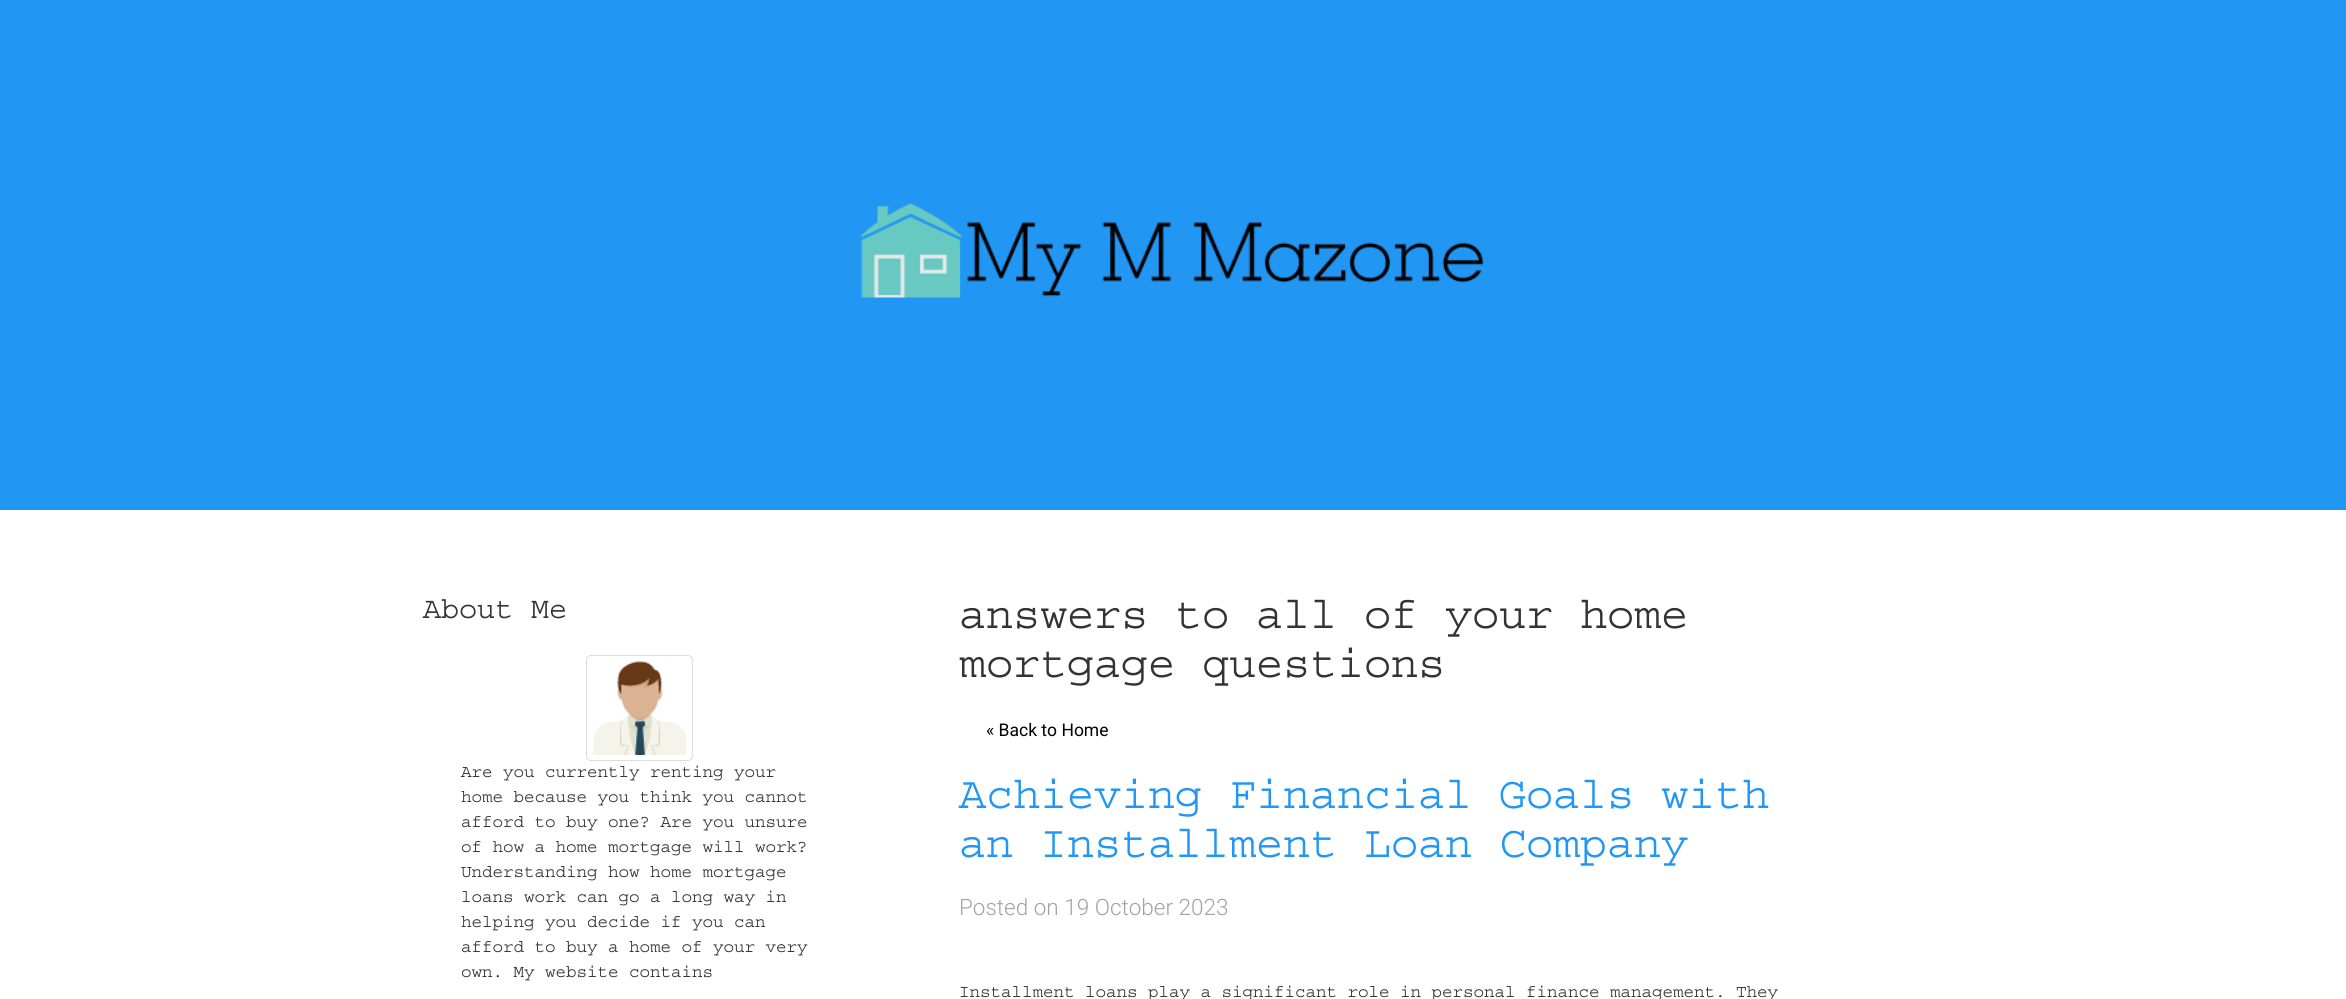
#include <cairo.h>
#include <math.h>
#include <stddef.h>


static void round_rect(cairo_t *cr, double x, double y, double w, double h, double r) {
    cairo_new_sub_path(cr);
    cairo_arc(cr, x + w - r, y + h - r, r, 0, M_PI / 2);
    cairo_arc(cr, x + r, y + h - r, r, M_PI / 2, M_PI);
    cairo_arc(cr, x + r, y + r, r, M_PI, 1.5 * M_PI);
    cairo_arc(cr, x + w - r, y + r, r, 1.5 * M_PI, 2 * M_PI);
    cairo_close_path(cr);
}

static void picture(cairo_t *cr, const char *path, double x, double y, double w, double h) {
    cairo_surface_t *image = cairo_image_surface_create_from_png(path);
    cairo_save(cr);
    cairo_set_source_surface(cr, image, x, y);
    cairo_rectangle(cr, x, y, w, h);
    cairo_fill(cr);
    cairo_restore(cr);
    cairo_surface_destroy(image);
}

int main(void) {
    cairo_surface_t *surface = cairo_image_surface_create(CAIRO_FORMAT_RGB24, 2346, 999);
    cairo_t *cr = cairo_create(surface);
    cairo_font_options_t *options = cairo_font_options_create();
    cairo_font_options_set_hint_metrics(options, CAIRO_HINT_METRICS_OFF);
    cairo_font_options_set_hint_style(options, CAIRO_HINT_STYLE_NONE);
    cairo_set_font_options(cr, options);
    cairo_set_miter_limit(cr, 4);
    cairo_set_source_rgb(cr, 1, 1, 1);
    cairo_paint(cr);
    cairo_set_source_rgb(cr, 0.129, 0.588, 0.953);
    cairo_rectangle(cr, 0, 0, 2346, 510);
    cairo_fill(cr);
    picture(cr, "img1.png", 861, 203, 623, 95);
    cairo_select_font_face(cr, "Courier Medium", CAIRO_FONT_SLANT_NORMAL, CAIRO_FONT_WEIGHT_NORMAL);
    cairo_set_font_size(cr, 30);
    cairo_set_source_rgb(cr, 0.2, 0.2, 0.2);
    cairo_move_to(cr, 423, 618);
    cairo_show_text(cr, "About Me");
    round_rect(cr, 586.5, 655.5, 106, 105, 4.5);
    cairo_set_source_rgb(cr, 0.867, 0.867, 0.867);
    cairo_set_line_width(cr, 1);
    cairo_stroke(cr);
    picture(cr, "img2.png", 592, 661, 94, 94);
    cairo_set_font_size(cr, 17.5);
    cairo_set_source_rgb(cr, 0.2, 0.2, 0.2);
    cairo_move_to(cr, 461, 777);
    cairo_show_text(cr, "Are you currently renting your");
    cairo_move_to(cr, 461, 802);
    cairo_show_text(cr, "home because you think you cannot");
    cairo_move_to(cr, 461, 827);
    cairo_show_text(cr, "afford to buy one? Are you unsure");
    cairo_move_to(cr, 461, 852);
    cairo_show_text(cr, "of how a home mortgage will work?");
    cairo_move_to(cr, 461, 877);
    cairo_show_text(cr, "Understanding how home mortgage");
    cairo_move_to(cr, 461, 902);
    cairo_show_text(cr, "loans work can go a long way in");
    cairo_move_to(cr, 461, 927);
    cairo_show_text(cr, "helping you decide if you can");
    cairo_move_to(cr, 461, 952);
    cairo_show_text(cr, "afford to buy a home of your very");
    cairo_move_to(cr, 461, 977);
    cairo_show_text(cr, "own. My website contains");
    cairo_set_font_size(cr, 45);
    cairo_move_to(cr, 959, 628);
    cairo_show_text(cr, "answers to all of your home");
    cairo_move_to(cr, 959, 677);
    cairo_show_text(cr, "mortgage questions");
    cairo_select_font_face(cr, "Roboto", CAIRO_FONT_SLANT_NORMAL, CAIRO_FONT_WEIGHT_NORMAL);
    cairo_set_font_size(cr, 17.5);
    cairo_set_source_rgb(cr, 0, 0, 0);
    cairo_move_to(cr, 986, 736);
    cairo_show_text(cr, "« Back to Home");
    cairo_select_font_face(cr, "Courier Medium", CAIRO_FONT_SLANT_NORMAL, CAIRO_FONT_WEIGHT_NORMAL);
    cairo_set_font_size(cr, 45);
    cairo_set_source_rgb(cr, 0.129, 0.588, 0.953);
    cairo_move_to(cr, 959, 808);
    cairo_show_text(cr, "Achieving Financial Goals with");
    cairo_move_to(cr, 959, 857);
    cairo_show_text(cr, "an Installment Loan Company");
    cairo_select_font_face(cr, "Roboto Light", CAIRO_FONT_SLANT_NORMAL, CAIRO_FONT_WEIGHT_NORMAL);
    cairo_set_font_size(cr, 22.5);
    cairo_set_source_rgb(cr, 0.635, 0.635, 0.635);
    cairo_move_to(cr, 959, 915);
    cairo_show_text(cr, "Posted on 19 October 2023");
    cairo_select_font_face(cr, "Courier Medium", CAIRO_FONT_SLANT_NORMAL, CAIRO_FONT_WEIGHT_NORMAL);
    cairo_set_font_size(cr, 17.5);
    cairo_set_source_rgb(cr, 0.2, 0.2, 0.2);
    cairo_move_to(cr, 959, 997);
    cairo_show_text(cr, "Installment loans play a significant role in personal finance management. They");
    cairo_surface_write_to_png(surface, "page.png");
    cairo_font_options_destroy(options);
    cairo_destroy(cr);
    cairo_surface_destroy(surface);
    return 0;
}
